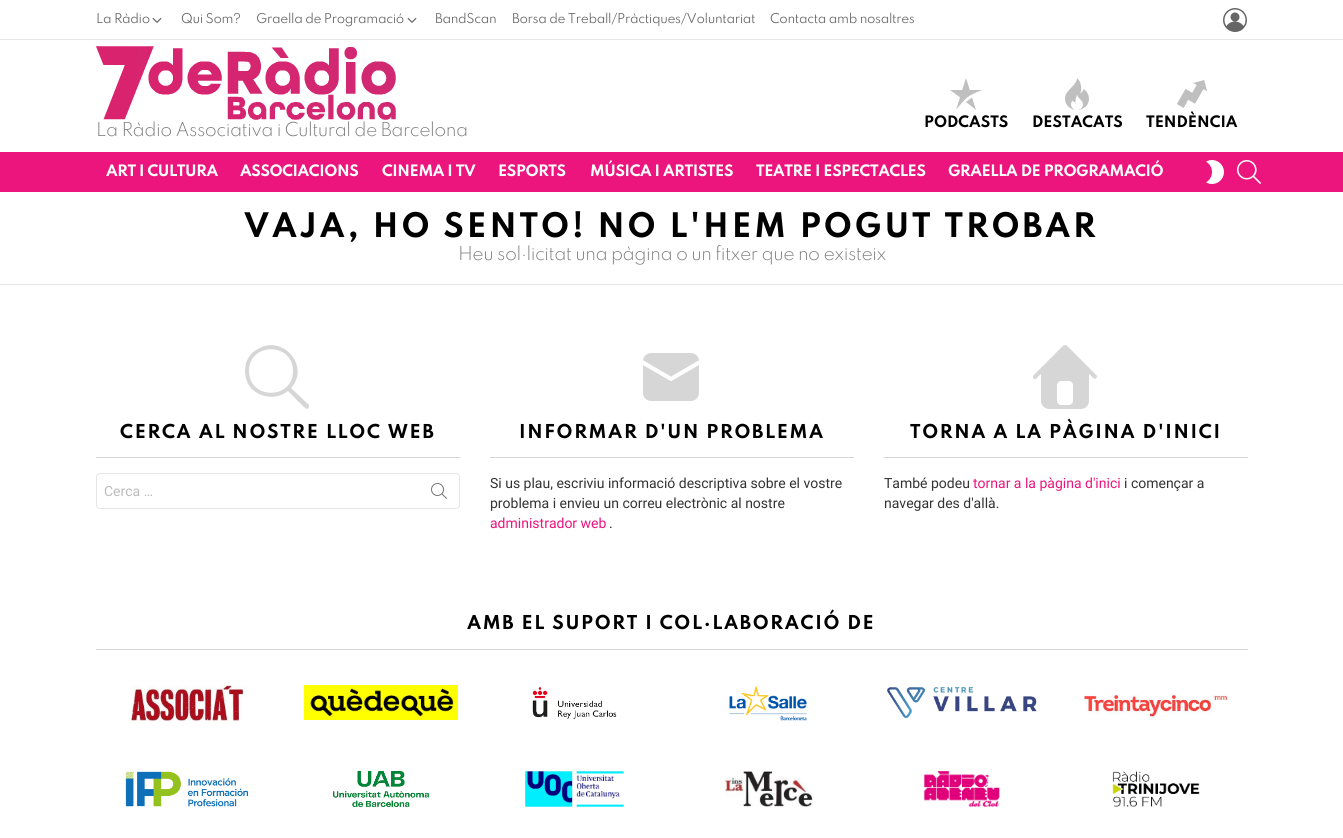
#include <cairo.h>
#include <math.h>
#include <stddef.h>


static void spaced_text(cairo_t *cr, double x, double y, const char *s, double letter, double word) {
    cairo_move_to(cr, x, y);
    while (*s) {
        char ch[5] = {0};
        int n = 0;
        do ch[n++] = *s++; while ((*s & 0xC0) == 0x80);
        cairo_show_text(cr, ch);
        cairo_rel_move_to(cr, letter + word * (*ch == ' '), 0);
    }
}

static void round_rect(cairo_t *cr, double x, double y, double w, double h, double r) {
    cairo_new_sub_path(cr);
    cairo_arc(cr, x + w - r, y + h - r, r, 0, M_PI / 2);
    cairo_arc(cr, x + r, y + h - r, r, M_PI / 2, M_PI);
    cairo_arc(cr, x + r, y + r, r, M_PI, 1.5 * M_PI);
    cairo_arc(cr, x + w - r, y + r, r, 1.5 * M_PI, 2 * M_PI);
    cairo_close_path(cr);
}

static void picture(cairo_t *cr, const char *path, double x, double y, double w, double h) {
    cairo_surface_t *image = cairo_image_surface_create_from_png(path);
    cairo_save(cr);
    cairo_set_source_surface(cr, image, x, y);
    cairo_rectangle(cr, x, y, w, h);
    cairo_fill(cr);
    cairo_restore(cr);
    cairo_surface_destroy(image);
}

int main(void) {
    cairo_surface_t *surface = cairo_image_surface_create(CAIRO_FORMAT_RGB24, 1343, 838);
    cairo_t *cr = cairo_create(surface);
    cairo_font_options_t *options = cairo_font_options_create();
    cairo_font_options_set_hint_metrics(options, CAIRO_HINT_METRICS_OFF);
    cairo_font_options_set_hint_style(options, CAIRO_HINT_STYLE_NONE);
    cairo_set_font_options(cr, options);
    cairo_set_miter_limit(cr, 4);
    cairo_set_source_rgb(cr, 1, 1, 1);
    cairo_paint(cr);
    cairo_select_font_face(cr, "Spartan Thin", CAIRO_FONT_SLANT_NORMAL, CAIRO_FONT_WEIGHT_NORMAL);
    cairo_set_font_size(cr, 12);
    cairo_set_source_rgb(cr, 0.4, 0.4, 0.4);
    spaced_text(cr, 96, 23, "La Ràdio", -0.35, 0);
    picture(cr, "img1.png", 152, 17, 10, 6);
    spaced_text(cr, 181, 23, "Qui Som?", -0.35, 0);
    spaced_text(cr, 256, 23, "Graella de Programació", -0.35, 0);
    picture(cr, "img1.png", 407, 17, 10, 6);
    spaced_text(cr, 435, 23, "BandScan", -0.35, 0);
    spaced_text(cr, 512, 23, "Borsa de Treball/Pràctiques/Voluntariat", -0.35, 0);
    spaced_text(cr, 770, 23, "Contacta amb nosaltres", -0.35, 0);
    picture(cr, "img2.png", 1223, 8, 24, 24);
    cairo_set_source_rgb(cr, 0.902, 0.902, 0.902);
    cairo_rectangle(cr, 0, 39, 1343, 1);
    cairo_fill(cr);
    picture(cr, "img3.png", 96, 46, 300, 74);
    cairo_select_font_face(cr, "Spartan Thin Light", CAIRO_FONT_SLANT_NORMAL, CAIRO_FONT_WEIGHT_NORMAL);
    cairo_set_font_size(cr, 17);
    cairo_set_source_rgb(cr, 0.502, 0.502, 0.502);
    spaced_text(cr, 96, 136, "La Ràdio Associativa i Cultural de Barcelona", -0.5, 0);
    picture(cr, "img4.png", 950, 78, 32, 32);
    cairo_select_font_face(cr, "Spartan Thin", CAIRO_FONT_SLANT_NORMAL, CAIRO_FONT_WEIGHT_BOLD);
    cairo_set_font_size(cr, 14);
    cairo_set_source_rgb(cr, 0, 0, 0);
    cairo_move_to(cr, 924, 127);
    cairo_show_text(cr, "PODCASTS");
    picture(cr, "img5.png", 1065, 78, 24, 32);
    cairo_move_to(cr, 1032, 127);
    cairo_show_text(cr, "DESTACATS");
    picture(cr, "img6.png", 1177, 80, 30, 28);
    cairo_move_to(cr, 1146, 127);
    cairo_show_text(cr, "TENDÈNCIA");
    cairo_set_source_rgb(cr, 0.925, 0.082, 0.49);
    cairo_rectangle(cr, 0, 152, 1343, 40);
    cairo_fill(cr);
    cairo_set_source_rgb(cr, 1, 1, 1);
    spaced_text(cr, 106, 176, "ART I CULTURA", -0.4, 0);
    spaced_text(cr, 240, 176, "ASSOCIACIONS", -0.4, 0);
    spaced_text(cr, 382, 176, "CINEMA I TV", -0.4, 0);
    spaced_text(cr, 498, 176, "ESPORTS", -0.4, 0);
    spaced_text(cr, 590, 176, "MÚSICA I ARTISTES", -0.4, 0);
    spaced_text(cr, 756, 176, "TEATRE I ESPECTACLES", -0.4, 0);
    spaced_text(cr, 948, 176, "GRAELLA DE PROGRAMACIÓ", -0.4, 0);
    picture(cr, "img7.png", 1206, 160, 18, 24);
    picture(cr, "img8.png", 1237, 160, 24, 24);
    cairo_set_font_size(cr, 30);
    cairo_set_source_rgb(cr, 0, 0, 0);
    spaced_text(cr, 244, 237, "VAJA, HO SENTO! NO L'HEM POGUT TROBAR", 2.9, 0);
    cairo_select_font_face(cr, "Spartan Thin Light", CAIRO_FONT_SLANT_NORMAL, CAIRO_FONT_WEIGHT_NORMAL);
    cairo_set_font_size(cr, 17);
    cairo_set_source_rgb(cr, 0.502, 0.502, 0.502);
    spaced_text(cr, 458, 260, "Heu sol·licitat una pàgina o un fitxer que no existeix", -0.5, 0);
    cairo_set_source_rgb(cr, 0.902, 0.902, 0.902);
    cairo_rectangle(cr, 0, 284, 1343, 1);
    cairo_fill(cr);
    cairo_set_source_rgb(cr, 0.839, 0.839, 0.839);
    cairo_new_path(cr);
    cairo_move_to(cr, 309, 405);
    cairo_line_to(cr, 291, 388);
    cairo_curve_to(cr, 311, 366, 282, 334, 258, 349);
    cairo_curve_to(cr, 252, 352, 248, 357, 246, 363);
    cairo_curve_to(cr, 244, 372, 245, 381, 251, 388);
    cairo_curve_to(cr, 260, 398, 277, 400, 288, 391);
    cairo_curve_to(cr, 290, 393, 305, 409, 307, 409);
    cairo_curve_to(cr, 309, 408, 309, 407, 309, 405);
    cairo_close_path(cr);
    cairo_move_to(cr, 249, 371);
    cairo_curve_to(cr, 249, 342, 293, 342, 293, 371);
    cairo_curve_to(cr, 293, 400, 249, 400, 249, 371);
    cairo_close_path(cr);
    cairo_fill(cr);
    cairo_select_font_face(cr, "Spartan Thin", CAIRO_FONT_SLANT_NORMAL, CAIRO_FONT_WEIGHT_BOLD);
    cairo_set_source_rgb(cr, 0, 0, 0);
    spaced_text(cr, 120, 438, "CERCA AL NOSTRE LLOC WEB", 1.65, 0);
    cairo_set_source_rgb(cr, 0.831, 0.831, 0.831);
    cairo_rectangle(cr, 96, 457, 364, 1);
    cairo_fill(cr);
    round_rect(cr, 96.5, 473.5, 363, 35, 3.5);
    cairo_set_source_rgb(cr, 0.902, 0.902, 0.902);
    cairo_set_line_width(cr, 1);
    cairo_stroke(cr);
    cairo_select_font_face(cr, "Roboto", CAIRO_FONT_SLANT_NORMAL, CAIRO_FONT_WEIGHT_NORMAL);
    cairo_set_font_size(cr, 14);
    cairo_set_source_rgb(cr, 0.737, 0.737, 0.737);
    cairo_move_to(cr, 104, 496);
    cairo_show_text(cr, "Cerca …");
    picture(cr, "img9.png", 431, 483, 16, 16);
    picture(cr, "img10.png", 643, 353, 56, 48);
    cairo_select_font_face(cr, "Spartan Thin", CAIRO_FONT_SLANT_NORMAL, CAIRO_FONT_WEIGHT_BOLD);
    cairo_set_font_size(cr, 17);
    cairo_set_source_rgb(cr, 0, 0, 0);
    spaced_text(cr, 519, 438, "INFORMAR D'UN PROBLEMA", 1.65, 0);
    cairo_set_source_rgb(cr, 0.831, 0.831, 0.831);
    cairo_rectangle(cr, 490, 457, 364, 1);
    cairo_fill(cr);
    cairo_select_font_face(cr, "Roboto", CAIRO_FONT_SLANT_NORMAL, CAIRO_FONT_WEIGHT_NORMAL);
    cairo_set_font_size(cr, 14);
    cairo_set_source_rgb(cr, 0.2, 0.2, 0.2);
    cairo_move_to(cr, 490, 488);
    cairo_show_text(cr, "Si us plau, escriviu informació descriptiva sobre el vostre");
    cairo_move_to(cr, 490, 508);
    cairo_show_text(cr, "problema i envieu un correu electrònic al nostre");
    cairo_set_source_rgb(cr, 0.925, 0.082, 0.49);
    cairo_move_to(cr, 490, 528);
    cairo_show_text(cr, "administrador web");
    cairo_set_source_rgb(cr, 0.2, 0.2, 0.2);
    cairo_move_to(cr, 609, 528);
    cairo_show_text(cr, ".");
    picture(cr, "img11.png", 1033, 345, 64, 64);
    cairo_select_font_face(cr, "Spartan Thin", CAIRO_FONT_SLANT_NORMAL, CAIRO_FONT_WEIGHT_BOLD);
    cairo_set_font_size(cr, 17);
    cairo_set_source_rgb(cr, 0, 0, 0);
    spaced_text(cr, 910, 438, "TORNA A LA PÀGINA D'INICI", 1.65, 0);
    cairo_set_source_rgb(cr, 0.831, 0.831, 0.831);
    cairo_rectangle(cr, 884, 457, 364, 1);
    cairo_fill(cr);
    cairo_select_font_face(cr, "Roboto", CAIRO_FONT_SLANT_NORMAL, CAIRO_FONT_WEIGHT_NORMAL);
    cairo_set_font_size(cr, 14);
    cairo_set_source_rgb(cr, 0.2, 0.2, 0.2);
    cairo_move_to(cr, 884, 488);
    cairo_show_text(cr, "També podeu");
    cairo_set_source_rgb(cr, 0.925, 0.082, 0.49);
    cairo_move_to(cr, 973, 488);
    cairo_show_text(cr, "tornar a la pàgina d'inici");
    cairo_set_source_rgb(cr, 0.2, 0.2, 0.2);
    cairo_move_to(cr, 1124, 488);
    cairo_show_text(cr, "i començar a");
    cairo_move_to(cr, 884, 508);
    cairo_show_text(cr, "navegar des d'allà.");
    cairo_select_font_face(cr, "Spartan Thin", CAIRO_FONT_SLANT_NORMAL, CAIRO_FONT_WEIGHT_BOLD);
    cairo_set_font_size(cr, 17);
    cairo_set_source_rgb(cr, 0, 0, 0);
    spaced_text(cr, 467, 629, "AMB EL SUPORT I COL·LABORACIÓ DE", 1.65, 0);
    cairo_set_source_rgb(cr, 0.831, 0.831, 0.831);
    cairo_rectangle(cr, 96, 649, 1152, 1);
    cairo_fill(cr);
    picture(cr, "img12.png", 131, 685, 116, 36);
    picture(cr, "img13.png", 304, 685, 154, 35);
    picture(cr, "img14.png", 532, 687, 85, 32);
    picture(cr, "img15.png", 729, 685, 78, 36);
    picture(cr, "img16.png", 887, 687, 150, 32);
    picture(cr, "img17.png", 1084, 694, 144, 27);
    picture(cr, "img18.png", 125, 771, 124, 36);
    picture(cr, "img19.png", 333, 771, 96, 36);
    picture(cr, "img20.png", 525, 771, 99, 36);
    picture(cr, "img21.png", 725, 771, 88, 36);
    picture(cr, "img22.png", 923, 771, 77, 36);
    picture(cr, "img23.png", 1112, 771, 88, 36);
    cairo_surface_write_to_png(surface, "page.png");
    cairo_font_options_destroy(options);
    cairo_destroy(cr);
    cairo_surface_destroy(surface);
    return 0;
}
